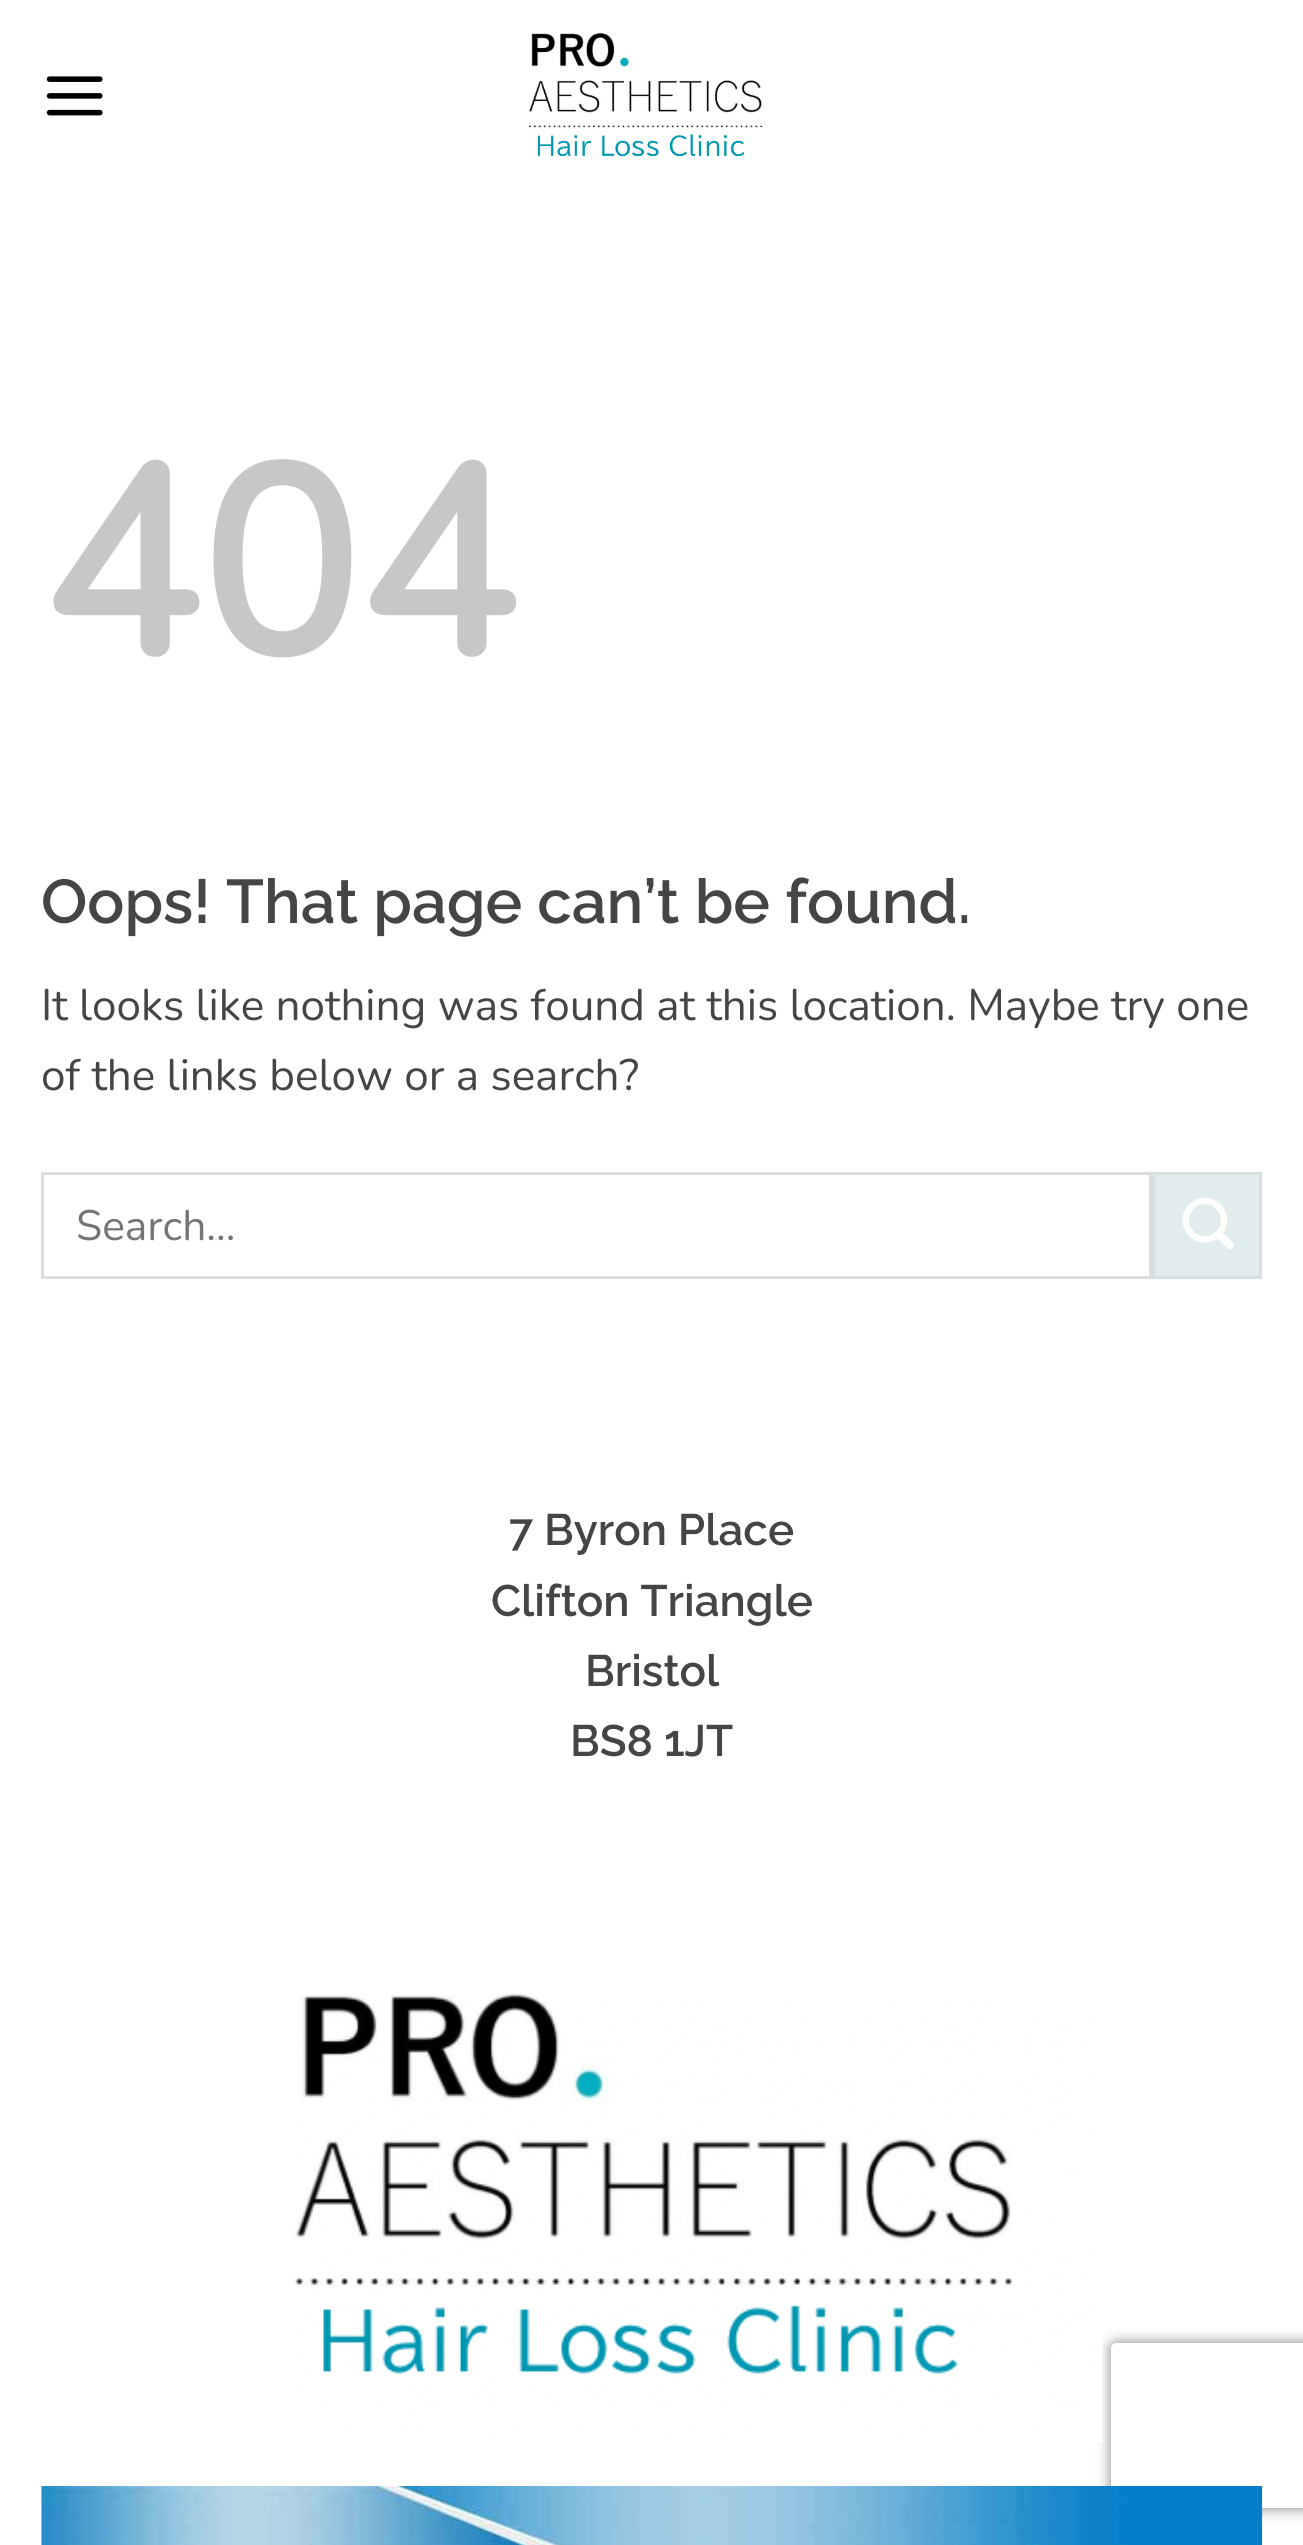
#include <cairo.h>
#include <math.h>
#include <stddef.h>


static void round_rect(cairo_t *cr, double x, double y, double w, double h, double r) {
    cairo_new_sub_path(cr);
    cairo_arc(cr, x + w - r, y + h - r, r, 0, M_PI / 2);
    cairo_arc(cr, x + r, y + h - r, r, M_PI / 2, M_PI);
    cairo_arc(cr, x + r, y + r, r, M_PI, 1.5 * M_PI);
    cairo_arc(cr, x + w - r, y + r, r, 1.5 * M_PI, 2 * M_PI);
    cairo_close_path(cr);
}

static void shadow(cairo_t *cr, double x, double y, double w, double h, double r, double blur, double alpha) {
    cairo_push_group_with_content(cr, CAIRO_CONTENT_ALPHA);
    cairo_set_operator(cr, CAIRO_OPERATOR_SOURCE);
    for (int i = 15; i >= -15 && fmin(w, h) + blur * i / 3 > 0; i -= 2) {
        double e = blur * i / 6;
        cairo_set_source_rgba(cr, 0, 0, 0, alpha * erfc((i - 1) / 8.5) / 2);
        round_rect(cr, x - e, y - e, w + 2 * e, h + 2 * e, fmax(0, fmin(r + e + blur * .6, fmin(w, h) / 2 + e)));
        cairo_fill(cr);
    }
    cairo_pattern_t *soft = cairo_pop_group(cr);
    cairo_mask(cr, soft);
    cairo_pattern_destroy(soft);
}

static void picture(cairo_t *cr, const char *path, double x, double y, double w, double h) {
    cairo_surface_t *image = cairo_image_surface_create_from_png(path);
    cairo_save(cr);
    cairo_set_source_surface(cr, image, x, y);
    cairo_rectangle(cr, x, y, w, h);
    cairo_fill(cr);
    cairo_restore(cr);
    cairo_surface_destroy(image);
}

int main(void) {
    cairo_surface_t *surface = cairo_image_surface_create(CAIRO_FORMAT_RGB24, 1303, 2545);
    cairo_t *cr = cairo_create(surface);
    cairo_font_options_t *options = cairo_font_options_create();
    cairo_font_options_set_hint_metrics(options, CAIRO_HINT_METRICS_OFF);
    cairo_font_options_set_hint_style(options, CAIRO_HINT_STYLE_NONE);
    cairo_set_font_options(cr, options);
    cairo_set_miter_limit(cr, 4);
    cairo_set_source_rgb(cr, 1, 1, 1);
    cairo_paint(cr);
    picture(cr, "img1.png", 46, 76, 57, 40);
    picture(cr, "img2.png", 528, 32, 235, 125);
    cairo_select_font_face(cr, "Nunito", CAIRO_FONT_SLANT_NORMAL, CAIRO_FONT_WEIGHT_BOLD);
    cairo_set_font_size(cr, 264);
    cairo_set_source_rgb(cr, 0.78, 0.78, 0.78);
    cairo_move_to(cr, 41, 655);
    cairo_show_text(cr, "404");
    cairo_select_font_face(cr, "Raleway SemiBold", CAIRO_FONT_SLANT_NORMAL, CAIRO_FONT_WEIGHT_NORMAL);
    cairo_set_font_size(cr, 61.6);
    cairo_set_source_rgb(cr, 0.271, 0.271, 0.271);
    cairo_move_to(cr, 41, 923);
    cairo_show_text(cr, "Oops! That page can’t be found.");
    cairo_select_font_face(cr, "Nunito ExtraLight", CAIRO_FONT_SLANT_NORMAL, CAIRO_FONT_WEIGHT_NORMAL);
    cairo_set_font_size(cr, 44);
    cairo_move_to(cr, 41, 1020);
    cairo_show_text(cr, "It looks like nothing was found at this location. Maybe try one");
    cairo_move_to(cr, 41, 1090);
    cairo_show_text(cr, "of the links below or a search?");
    cairo_rectangle(cr, 42.5, 1173.5, 1108, 104);
    cairo_set_source_rgb(cr, 0.867, 0.867, 0.867);
    cairo_set_line_width(cr, 3);
    cairo_stroke(cr);
    cairo_set_font_size(cr, 42.5);
    cairo_set_source_rgb(cr, 0.459, 0.459, 0.459);
    cairo_move_to(cr, 76, 1240);
    cairo_show_text(cr, "Search…");
    cairo_set_source_rgb(cr, 0.878, 0.929, 0.925);
    cairo_rectangle(cr, 1153.5, 1173.5, 107, 104);
    cairo_fill_preserve(cr);
    cairo_set_source_rgb(cr, 0.835, 0.882, 0.878);
    cairo_stroke(cr);
    picture(cr, "img3.png", 1182, 1197, 52, 52);
    cairo_select_font_face(cr, "Raleway SemiBold", CAIRO_FONT_SLANT_NORMAL, CAIRO_FONT_WEIGHT_NORMAL);
    cairo_set_font_size(cr, 44);
    cairo_set_source_rgb(cr, 0.271, 0.271, 0.271);
    cairo_move_to(cr, 509, 1545);
    cairo_show_text(cr, "7 Byron Place");
    cairo_move_to(cr, 491, 1616);
    cairo_show_text(cr, "Clifton Triangle");
    cairo_move_to(cr, 585, 1686);
    cairo_show_text(cr, "Bristol");
    cairo_move_to(cr, 570, 1756);
    cairo_show_text(cr, "BS8 1JT");
    cairo_save(cr);
    cairo_set_fill_rule(cr, CAIRO_FILL_RULE_EVEN_ODD);
    cairo_new_path(cr);
    cairo_move_to(cr, 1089, 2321);
    cairo_line_to(cr, 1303, 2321);
    cairo_line_to(cr, 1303, 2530);
    cairo_line_to(cr, 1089, 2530);
    cairo_close_path(cr);
    cairo_move_to(cr, 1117, 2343);
    cairo_line_to(cr, 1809, 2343);
    cairo_curve_to(cr, 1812.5, 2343, 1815, 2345.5, 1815, 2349);
    cairo_line_to(cr, 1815, 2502);
    cairo_curve_to(cr, 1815, 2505.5, 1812.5, 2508, 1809, 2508);
    cairo_line_to(cr, 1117, 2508);
    cairo_curve_to(cr, 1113.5, 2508, 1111, 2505.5, 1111, 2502);
    cairo_line_to(cr, 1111, 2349);
    cairo_curve_to(cr, 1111, 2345.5, 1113.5, 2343, 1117, 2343);
    cairo_close_path(cr);
    cairo_clip(cr);
    cairo_set_source_rgb(cr, 0.502, 0.502, 0.502);
    shadow(cr, 1111, 2343, 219, 165, 6, 7, 1);
    cairo_restore(cr);
    picture(cr, "img4.png", 293, 1993, 810, 449);
    picture(cr, "img5.png", 41, 2486, 1222, 59);
    cairo_surface_write_to_png(surface, "page.png");
    cairo_font_options_destroy(options);
    cairo_destroy(cr);
    cairo_surface_destroy(surface);
    return 0;
}
